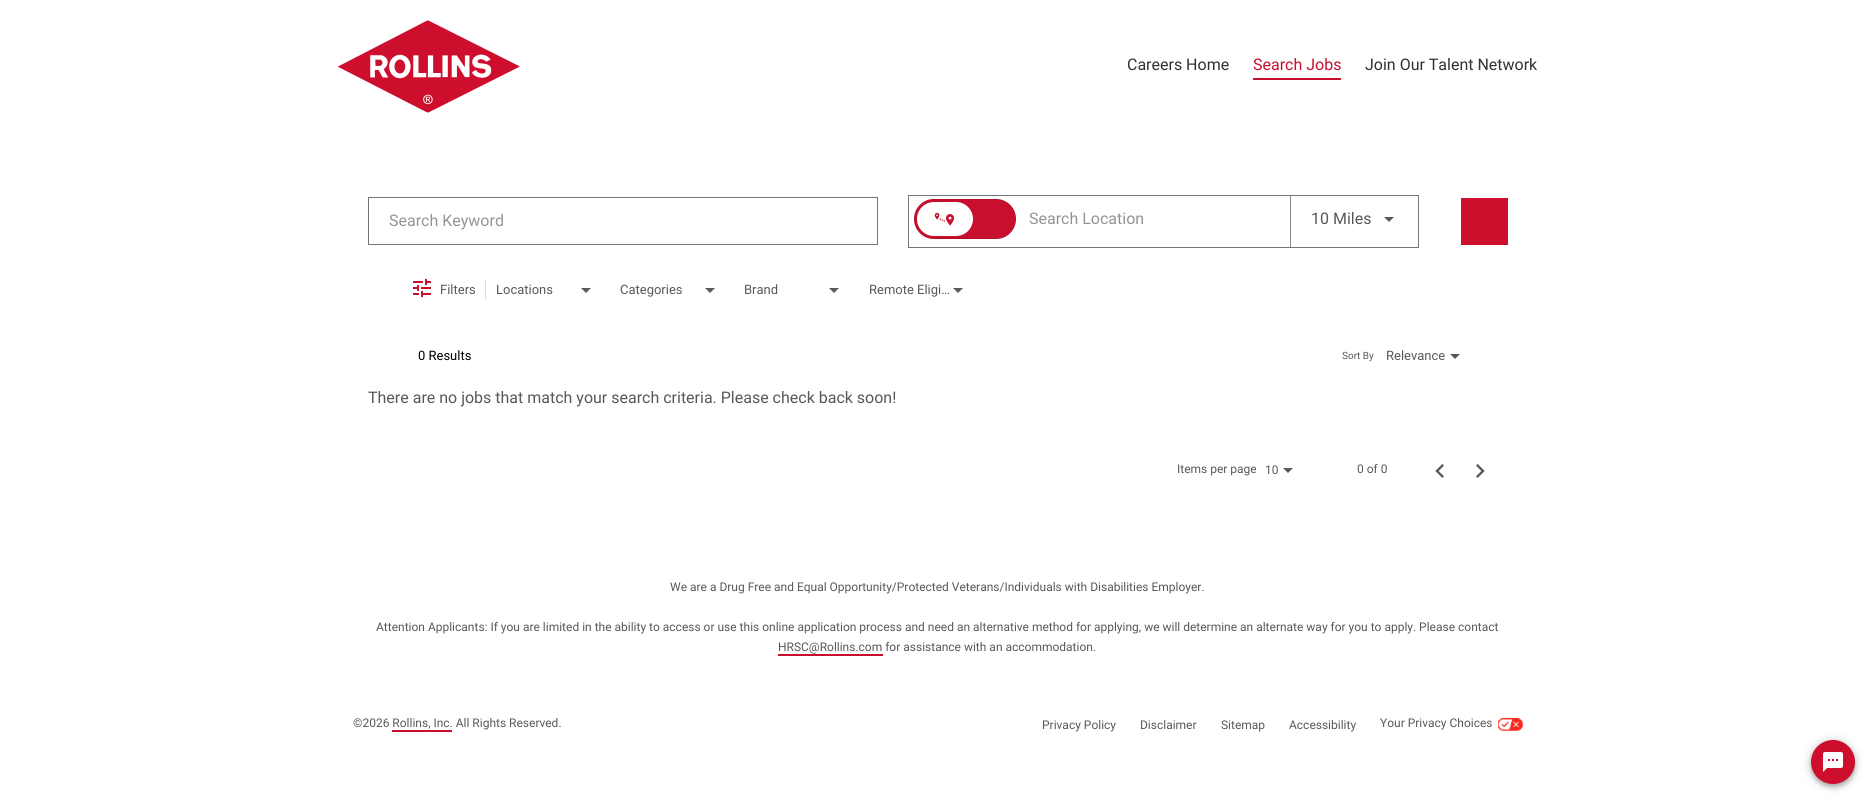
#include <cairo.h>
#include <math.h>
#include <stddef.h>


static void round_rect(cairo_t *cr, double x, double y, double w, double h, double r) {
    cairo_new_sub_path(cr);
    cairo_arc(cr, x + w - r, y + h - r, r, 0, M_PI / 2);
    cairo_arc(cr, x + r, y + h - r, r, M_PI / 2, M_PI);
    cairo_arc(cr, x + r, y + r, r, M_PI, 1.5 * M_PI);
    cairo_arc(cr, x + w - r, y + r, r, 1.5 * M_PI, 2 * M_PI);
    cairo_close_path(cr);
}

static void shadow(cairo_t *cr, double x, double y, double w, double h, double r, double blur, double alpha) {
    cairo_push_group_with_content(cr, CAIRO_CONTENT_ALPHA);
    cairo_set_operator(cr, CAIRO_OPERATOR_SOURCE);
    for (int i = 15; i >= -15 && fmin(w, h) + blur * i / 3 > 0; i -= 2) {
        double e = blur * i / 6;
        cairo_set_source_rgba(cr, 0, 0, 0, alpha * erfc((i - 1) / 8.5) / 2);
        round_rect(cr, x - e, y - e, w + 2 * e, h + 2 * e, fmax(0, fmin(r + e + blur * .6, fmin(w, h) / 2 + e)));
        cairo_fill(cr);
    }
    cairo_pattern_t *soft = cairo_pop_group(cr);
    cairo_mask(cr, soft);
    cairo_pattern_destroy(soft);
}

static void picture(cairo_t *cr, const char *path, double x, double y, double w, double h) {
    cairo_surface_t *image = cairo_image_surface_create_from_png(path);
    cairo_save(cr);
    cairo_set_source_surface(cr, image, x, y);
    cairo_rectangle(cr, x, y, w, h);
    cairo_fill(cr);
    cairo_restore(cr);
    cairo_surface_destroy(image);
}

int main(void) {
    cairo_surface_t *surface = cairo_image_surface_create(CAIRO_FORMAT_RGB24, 1875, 804);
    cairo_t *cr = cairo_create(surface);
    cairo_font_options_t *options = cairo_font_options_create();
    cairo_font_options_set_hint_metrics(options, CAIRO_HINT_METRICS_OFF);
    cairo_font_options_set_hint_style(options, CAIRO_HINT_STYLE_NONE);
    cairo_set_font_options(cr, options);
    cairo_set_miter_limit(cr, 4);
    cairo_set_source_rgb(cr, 1, 1, 1);
    cairo_paint(cr);
    picture(cr, "img1.png", 338, 20, 182, 93);
    cairo_select_font_face(cr, "Roboto", CAIRO_FONT_SLANT_NORMAL, CAIRO_FONT_WEIGHT_NORMAL);
    cairo_set_font_size(cr, 16);
    cairo_set_source_rgb(cr, 0.2, 0.184, 0.188);
    cairo_move_to(cr, 1127, 70);
    cairo_show_text(cr, "Careers Home");
    cairo_set_source_rgb(cr, 0.784, 0.063, 0.18);
    cairo_rectangle(cr, 1253, 78, 88, 2);
    cairo_fill(cr);
    cairo_move_to(cr, 1253, 70);
    cairo_show_text(cr, "Search Jobs");
    cairo_set_source_rgb(cr, 0.2, 0.184, 0.188);
    cairo_move_to(cr, 1365, 70);
    cairo_show_text(cr, "Join Our Talent Network");
    cairo_rectangle(cr, 368.5, 197.5, 509, 47);
    cairo_set_source_rgb(cr, 0.459, 0.459, 0.459);
    cairo_set_line_width(cr, 1);
    cairo_stroke(cr);
    cairo_set_source_rgb(cr, 0.58, 0.58, 0.58);
    cairo_move_to(cr, 389, 226);
    cairo_show_text(cr, "Search Keyword");
    cairo_rectangle(cr, 908.5, 195.5, 510, 52);
    cairo_set_source_rgb(cr, 0.459, 0.459, 0.459);
    cairo_stroke(cr);
    cairo_set_source_rgb(cr, 0.784, 0.063, 0.18);
    round_rect(cr, 914, 199, 102, 40, 20);
    cairo_fill(cr);
    round_rect(cr, 914.5, 199.5, 101, 39, 19.5);
    cairo_set_source_rgba(cr, 0, 0, 0, 0.12);
    cairo_stroke(cr);
    cairo_set_source_rgb(cr, 0.784, 0.063, 0.18);
    cairo_new_path(cr);
    cairo_move_to(cr, 934, 200);
    cairo_line_to(cr, 975, 200);
    cairo_line_to(cr, 975, 238);
    cairo_line_to(cr, 934, 238);
    cairo_curve_to(cr, 923.5, 238, 915, 229.5, 915, 219);
    cairo_curve_to(cr, 915, 208.5, 923.5, 200, 934, 200);
    cairo_close_path(cr);
    cairo_fill(cr);
    cairo_set_source_rgb(cr, 1, 1, 1);
    round_rect(cr, 917, 202, 56, 34, 17);
    cairo_fill(cr);
    picture(cr, "img2.png", 934, 212, 21, 14);
    cairo_set_source_rgb(cr, 0.784, 0.063, 0.18);
    cairo_new_path(cr);
    cairo_move_to(cr, 975, 200);
    cairo_line_to(cr, 996, 200);
    cairo_curve_to(cr, 1006.5, 200, 1015, 208.5, 1015, 219);
    cairo_curve_to(cr, 1015, 229.5, 1006.5, 238, 996, 238);
    cairo_line_to(cr, 975, 238);
    cairo_close_path(cr);
    cairo_fill(cr);
    cairo_set_source_rgb(cr, 0.58, 0.58, 0.58);
    cairo_move_to(cr, 1029, 224);
    cairo_show_text(cr, "Search Location");
    cairo_set_source_rgb(cr, 0.533, 0.533, 0.533);
    cairo_rectangle(cr, 1290, 196, 1, 51);
    cairo_fill(cr);
    cairo_set_source_rgb(cr, 0.345, 0.345, 0.345);
    cairo_move_to(cr, 1311, 224);
    cairo_show_text(cr, "10 Miles");
    cairo_new_path(cr);
    cairo_move_to(cr, 1384, 217);
    cairo_line_to(cr, 1394, 217);
    cairo_line_to(cr, 1389, 222);
    cairo_close_path(cr);
    cairo_fill(cr);
    cairo_set_source_rgb(cr, 0.808, 0.055, 0.176);
    cairo_rectangle(cr, 1461, 198, 47, 47);
    cairo_fill(cr);
    picture(cr, "img3.png", 413, 279, 18, 18);
    cairo_set_source_rgb(cr, 0.867, 0.867, 0.867);
    cairo_rectangle(cr, 485, 280, 1, 20);
    cairo_fill(cr);
    cairo_set_font_size(cr, 13);
    cairo_set_source_rgb(cr, 0.345, 0.345, 0.345);
    cairo_move_to(cr, 440, 294);
    cairo_show_text(cr, "Filters");
    cairo_move_to(cr, 496, 294);
    cairo_show_text(cr, "Locations");
    cairo_new_path(cr);
    cairo_move_to(cr, 581, 288);
    cairo_line_to(cr, 591, 288);
    cairo_line_to(cr, 586, 293);
    cairo_close_path(cr);
    cairo_fill(cr);
    cairo_move_to(cr, 620, 294);
    cairo_show_text(cr, "Categories");
    cairo_new_path(cr);
    cairo_move_to(cr, 705, 288);
    cairo_line_to(cr, 715, 288);
    cairo_line_to(cr, 710, 293);
    cairo_close_path(cr);
    cairo_fill(cr);
    cairo_move_to(cr, 744, 294);
    cairo_show_text(cr, "Brand");
    cairo_new_path(cr);
    cairo_move_to(cr, 829, 288);
    cairo_line_to(cr, 839, 288);
    cairo_line_to(cr, 834, 293);
    cairo_close_path(cr);
    cairo_fill(cr);
    cairo_move_to(cr, 869, 294);
    cairo_show_text(cr, "Remote Eligi…");
    cairo_new_path(cr);
    cairo_move_to(cr, 953, 288);
    cairo_line_to(cr, 963, 288);
    cairo_line_to(cr, 958, 293);
    cairo_close_path(cr);
    cairo_fill(cr);
    cairo_set_source_rgb(cr, 0, 0, 0);
    cairo_move_to(cr, 418, 360);
    cairo_show_text(cr, "0 Results");
    cairo_set_font_size(cr, 10);
    cairo_set_source_rgb(cr, 0.345, 0.345, 0.345);
    cairo_move_to(cr, 1342, 359);
    cairo_show_text(cr, "Sort By");
    cairo_set_font_size(cr, 13);
    cairo_move_to(cr, 1386, 360);
    cairo_show_text(cr, "Relevance");
    cairo_new_path(cr);
    cairo_move_to(cr, 1450, 354);
    cairo_line_to(cr, 1460, 354);
    cairo_line_to(cr, 1455, 359);
    cairo_close_path(cr);
    cairo_fill(cr);
    cairo_set_font_size(cr, 16);
    cairo_move_to(cr, 368, 403);
    cairo_show_text(cr, "There are no jobs that match your search criteria. Please check back soon!");
    cairo_set_font_size(cr, 12);
    cairo_move_to(cr, 1177, 473);
    cairo_show_text(cr, "Items per page");
    cairo_move_to(cr, 1265, 474);
    cairo_show_text(cr, "10");
    cairo_new_path(cr);
    cairo_move_to(cr, 1283, 468);
    cairo_line_to(cr, 1293, 468);
    cairo_line_to(cr, 1288, 473);
    cairo_close_path(cr);
    cairo_fill(cr);
    cairo_move_to(cr, 1357, 473);
    cairo_show_text(cr, "0 of 0");
    picture(cr, "img4.png", 1435, 464, 9, 14);
    picture(cr, "img5.png", 1476, 464, 9, 14);
    cairo_move_to(cr, 670, 591);
    cairo_show_text(cr, "We are a Drug Free and Equal Opportunity/Protected Veterans/Individuals with Disabilities Employer.");
    cairo_move_to(cr, 376, 631);
    cairo_show_text(cr, "Attention Applicants: If you are limited in the ability to access or use this online application process and need an alternative method for applying, we will determine an alternate way for you to apply. Please contact");
    cairo_move_to(cr, 778, 651);
    cairo_show_text(cr, "HRSC@Rollins.com for assistance with an accommodation.");
    cairo_set_source_rgb(cr, 0.784, 0.063, 0.18);
    cairo_rectangle(cr, 778, 654, 105, 2);
    cairo_fill(cr);
    cairo_set_source_rgb(cr, 0.345, 0.345, 0.345);
    cairo_move_to(cr, 353, 727);
    cairo_show_text(cr, "©2026 Rollins, Inc. All Rights Reserved.");
    cairo_set_source_rgb(cr, 0.784, 0.063, 0.18);
    cairo_rectangle(cr, 392, 730, 60, 2);
    cairo_fill(cr);
    cairo_set_source_rgb(cr, 0.345, 0.345, 0.345);
    cairo_move_to(cr, 1042, 729);
    cairo_show_text(cr, "Privacy Policy");
    cairo_move_to(cr, 1140, 729);
    cairo_show_text(cr, "Disclaimer");
    cairo_move_to(cr, 1221, 729);
    cairo_show_text(cr, "Sitemap");
    cairo_move_to(cr, 1289, 729);
    cairo_show_text(cr, "Accessibility");
    cairo_move_to(cr, 1380, 727);
    cairo_show_text(cr, "Your Privacy Choices");
    picture(cr, "img6.png", 1498, 717, 25, 14);
    cairo_set_source_rgb(cr, 0, 0, 0);
    shadow(cr, 1811, 741, 44, 44, 22, 5, 0.2);
    shadow(cr, 1811, 744, 44, 44, 22, 2.5, 0.12);
    shadow(cr, 1811, 742, 44, 44, 22, 2, 0.14);
    cairo_set_source_rgb(cr, 0.808, 0.055, 0.176);
    cairo_arc(cr, 1833, 762, 22, 0, 2 * M_PI);
    cairo_fill(cr);
    picture(cr, "img7.png", 1823, 752, 20, 20);
    cairo_surface_write_to_png(surface, "page.png");
    cairo_font_options_destroy(options);
    cairo_destroy(cr);
    cairo_surface_destroy(surface);
    return 0;
}
